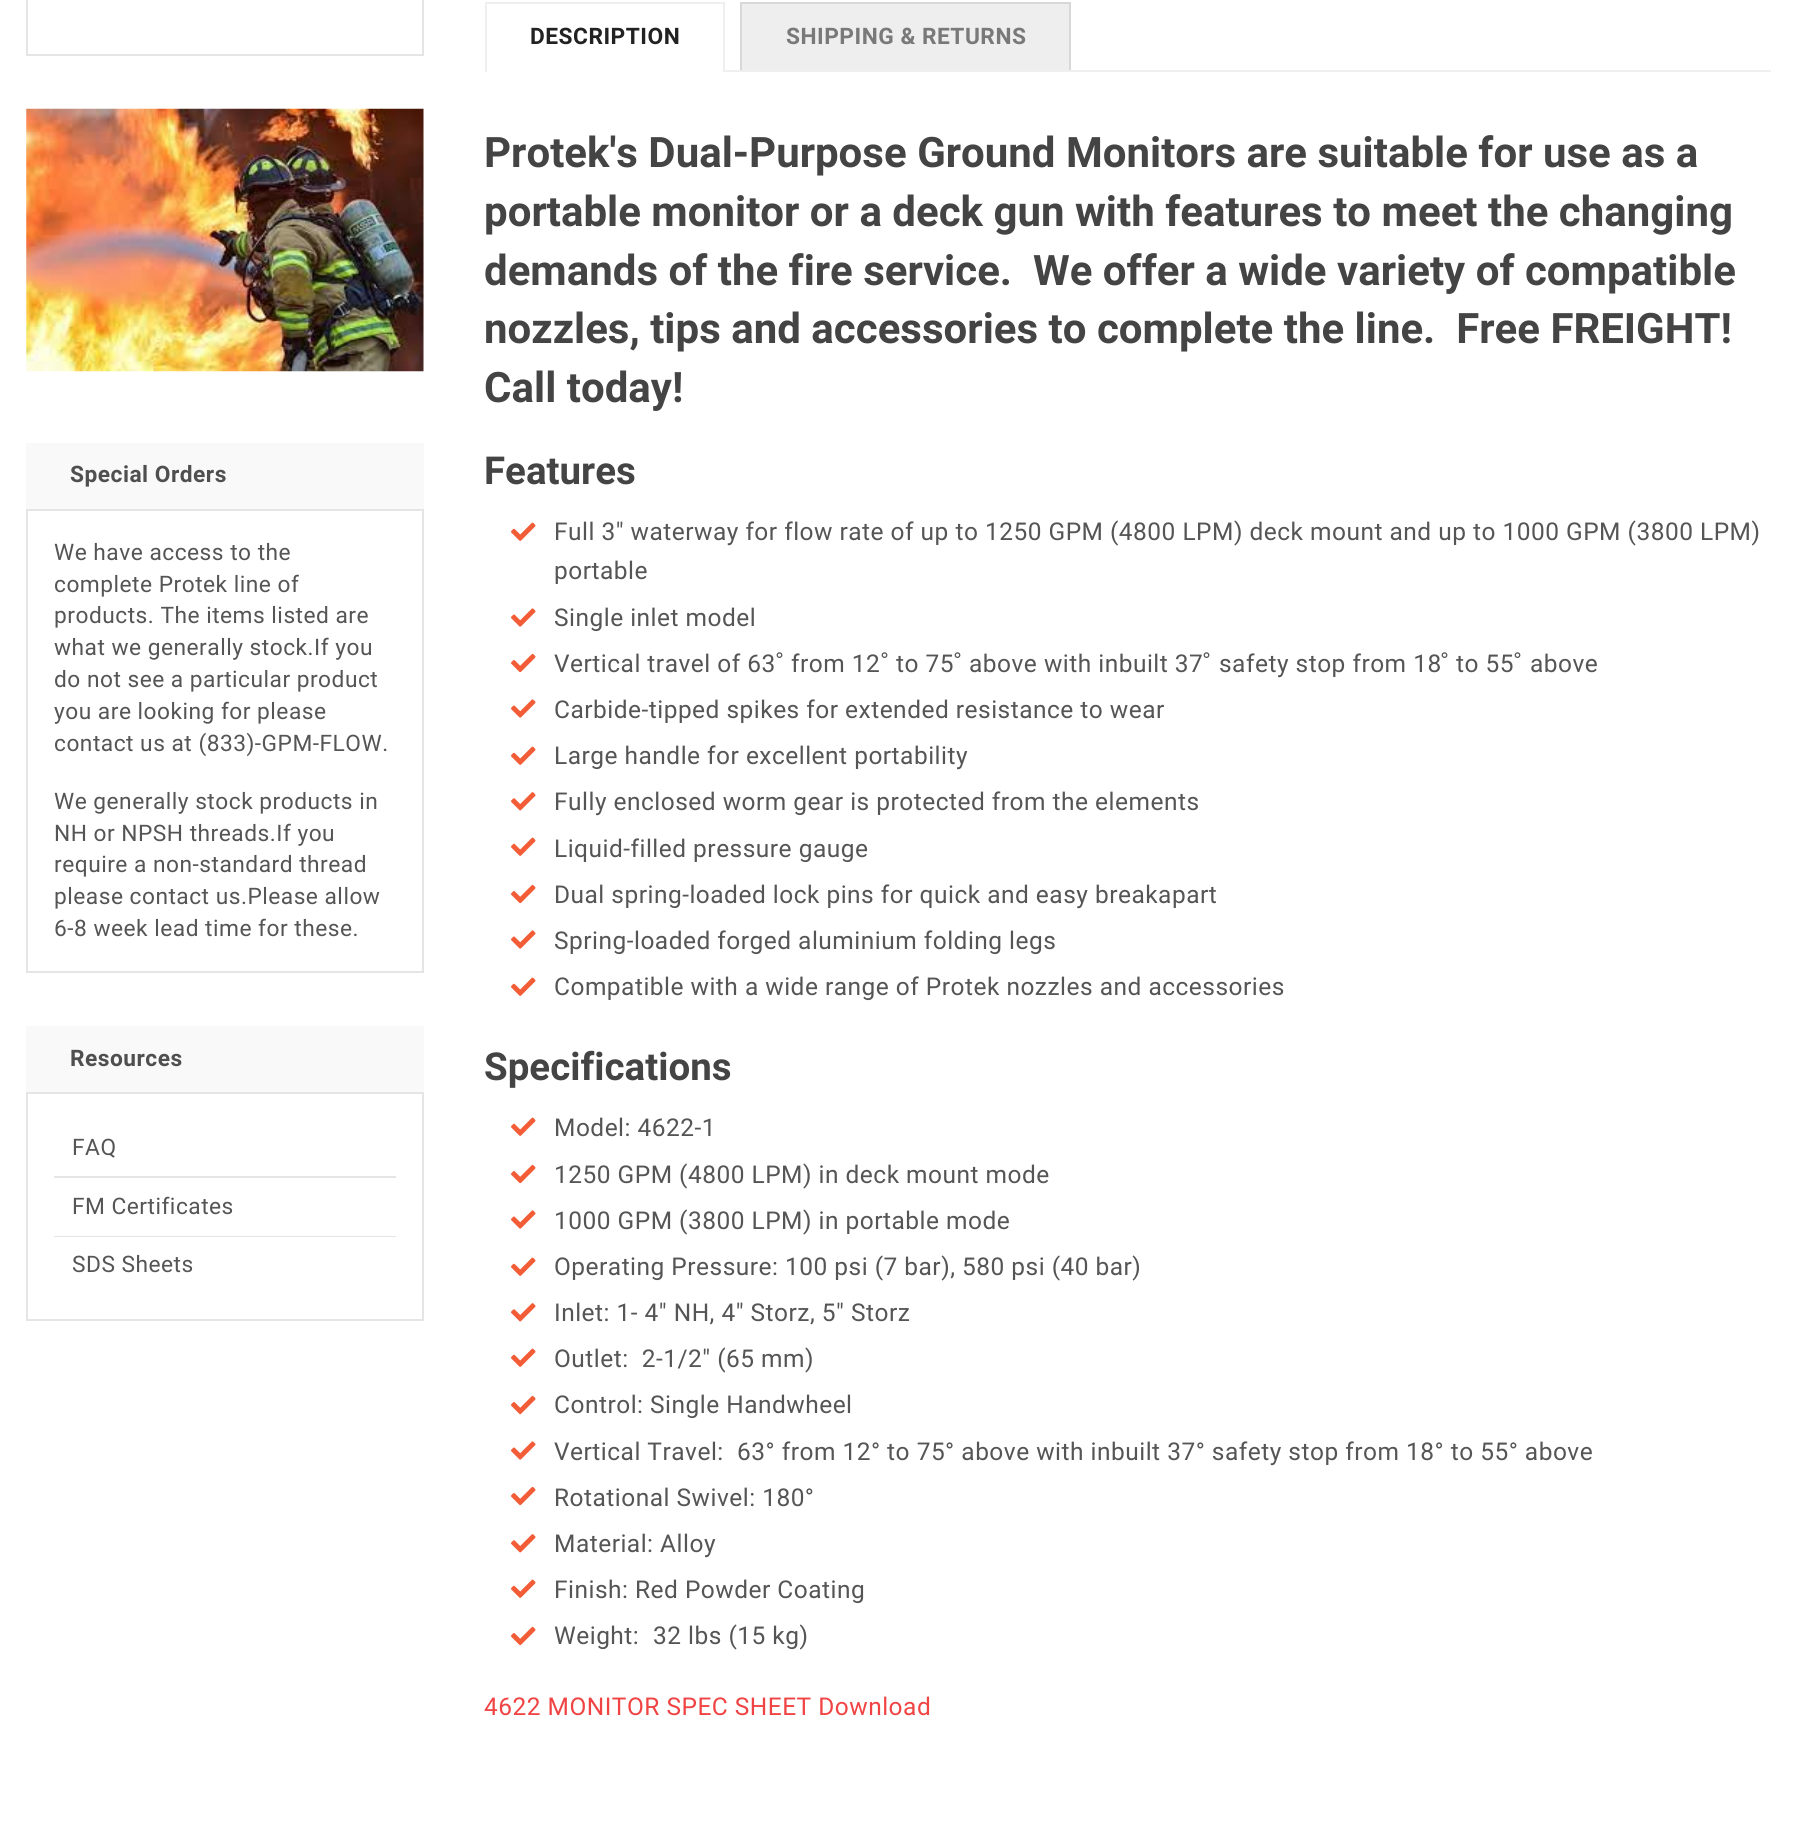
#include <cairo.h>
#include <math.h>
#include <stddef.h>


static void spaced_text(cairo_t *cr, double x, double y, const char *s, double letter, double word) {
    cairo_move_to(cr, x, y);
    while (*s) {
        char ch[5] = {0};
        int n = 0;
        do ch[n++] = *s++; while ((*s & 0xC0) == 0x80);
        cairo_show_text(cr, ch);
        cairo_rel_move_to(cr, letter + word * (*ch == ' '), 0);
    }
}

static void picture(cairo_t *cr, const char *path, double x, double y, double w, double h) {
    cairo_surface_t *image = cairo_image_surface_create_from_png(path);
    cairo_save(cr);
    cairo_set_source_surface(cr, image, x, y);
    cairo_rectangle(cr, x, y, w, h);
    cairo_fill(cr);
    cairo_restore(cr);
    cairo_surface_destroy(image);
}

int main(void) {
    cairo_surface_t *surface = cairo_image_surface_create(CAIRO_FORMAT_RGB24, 1796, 1824);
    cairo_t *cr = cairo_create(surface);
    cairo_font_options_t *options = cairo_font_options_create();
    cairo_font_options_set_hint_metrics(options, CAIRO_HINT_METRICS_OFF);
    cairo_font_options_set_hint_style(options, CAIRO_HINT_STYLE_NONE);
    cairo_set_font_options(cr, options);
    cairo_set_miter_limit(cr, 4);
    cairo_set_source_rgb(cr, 1, 1, 1);
    cairo_paint(cr);
    cairo_rectangle(cr, 27, -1, 396, 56);
    cairo_set_source_rgb(cr, 0.898, 0.898, 0.898);
    cairo_stroke(cr);
    picture(cr, "img1.png", 26, 108, 398, 264);
    cairo_set_source_rgb(cr, 0.973, 0.973, 0.973);
    cairo_rectangle(cr, 26, 443, 398, 66);
    cairo_fill(cr);
    cairo_select_font_face(cr, "Roboto", CAIRO_FONT_SLANT_NORMAL, CAIRO_FONT_WEIGHT_BOLD);
    cairo_set_font_size(cr, 22.75);
    cairo_set_source_rgb(cr, 0.31, 0.31, 0.31);
    spaced_text(cr, 70, 482, "Special Orders", 0.49, 0);
    cairo_rectangle(cr, 27, 510, 396, 462);
    cairo_set_source_rgb(cr, 0.898, 0.898, 0.898);
    cairo_stroke(cr);
    cairo_select_font_face(cr, "Roboto", CAIRO_FONT_SLANT_NORMAL, CAIRO_FONT_WEIGHT_NORMAL);
    cairo_set_source_rgb(cr, 0.333, 0.333, 0.333);
    spaced_text(cr, 54, 560, "We have access to the", 0.49, 0);
    spaced_text(cr, 54, 592, "complete Protek line of", 0.49, 0);
    spaced_text(cr, 54, 623, "products. The items listed are", 0.49, 0);
    spaced_text(cr, 54, 655, "what we generally stock.If you", 0.49, 0);
    spaced_text(cr, 54, 687, "do not see a particular product", 0.49, 0);
    spaced_text(cr, 54, 719, "you are looking for please", 0.49, 0);
    spaced_text(cr, 54, 751, "contact us at (833)-GPM-FLOW.", 0.49, 0);
    spaced_text(cr, 54, 809, "We generally stock products in", 0.49, 0);
    spaced_text(cr, 54, 841, "NH or NPSH threads.If you", 0.49, 0);
    spaced_text(cr, 54, 872, "require a non-standard thread", 0.49, 0);
    spaced_text(cr, 54, 904, "please contact us.Please allow", 0.49, 0);
    spaced_text(cr, 54, 936, "6-8 week lead time for these.", 0.49, 0);
    cairo_set_source_rgb(cr, 0.973, 0.973, 0.973);
    cairo_rectangle(cr, 26, 1026, 398, 66);
    cairo_fill(cr);
    cairo_select_font_face(cr, "Roboto", CAIRO_FONT_SLANT_NORMAL, CAIRO_FONT_WEIGHT_BOLD);
    cairo_set_source_rgb(cr, 0.31, 0.31, 0.31);
    spaced_text(cr, 70, 1066, "Resources", 0.49, 0);
    cairo_rectangle(cr, 27, 1093, 396, 227);
    cairo_set_source_rgb(cr, 0.898, 0.898, 0.898);
    cairo_stroke(cr);
    cairo_select_font_face(cr, "Roboto", CAIRO_FONT_SLANT_NORMAL, CAIRO_FONT_WEIGHT_NORMAL);
    cairo_set_source_rgb(cr, 0.333, 0.333, 0.333);
    spaced_text(cr, 72, 1155, "FAQ", 0.49, 0);
    cairo_set_source_rgb(cr, 0.898, 0.898, 0.898);
    cairo_rectangle(cr, 54, 1176, 342, 2);
    cairo_fill(cr);
    cairo_set_source_rgb(cr, 0.333, 0.333, 0.333);
    spaced_text(cr, 72, 1214, "FM Certificates", 0.49, 0);
    cairo_set_source_rgb(cr, 0.898, 0.898, 0.898);
    cairo_rectangle(cr, 54, 1236, 342, 1);
    cairo_fill(cr);
    cairo_set_source_rgb(cr, 0.333, 0.333, 0.333);
    spaced_text(cr, 72, 1272, "SDS Sheets", 0.49, 0);
    cairo_set_source_rgb(cr, 0.937, 0.937, 0.937);
    cairo_rectangle(cr, 485, 70, 1286, 2);
    cairo_fill(cr);
    cairo_rectangle(cr, 485, 2, 240, 2);
    cairo_fill(cr);
    cairo_rectangle(cr, 723, 2, 2, 68);
    cairo_fill(cr);
    cairo_rectangle(cr, 485, 2, 2, 68);
    cairo_fill(cr);
    cairo_select_font_face(cr, "Roboto", CAIRO_FONT_SLANT_NORMAL, CAIRO_FONT_WEIGHT_BOLD);
    cairo_set_source_rgb(cr, 0.133, 0.133, 0.133);
    spaced_text(cr, 530, 44, "DESCRIPTION", 0.5, 0);
    cairo_set_source_rgb(cr, 1, 1, 1);
    cairo_rectangle(cr, 487, 70, 236, 2);
    cairo_fill(cr);
    cairo_set_source_rgb(cr, 0.933, 0.933, 0.933);
    cairo_rectangle(cr, 742, 4, 327, 66);
    cairo_fill(cr);
    cairo_set_source_rgb(cr, 0.847, 0.847, 0.847);
    cairo_rectangle(cr, 740, 2, 331, 2);
    cairo_fill(cr);
    cairo_rectangle(cr, 1069, 2, 2, 68);
    cairo_fill(cr);
    cairo_rectangle(cr, 740, 2, 2, 68);
    cairo_fill(cr);
    cairo_set_source_rgb(cr, 0.475, 0.475, 0.475);
    spaced_text(cr, 786, 44, "SHIPPING & RETURNS", 0.5, 0);
    cairo_set_font_size(cr, 42);
    cairo_set_source_rgb(cr, 0.267, 0.267, 0.267);
    cairo_move_to(cr, 484, 167);
    cairo_show_text(cr, "Protek's Dual-Purpose Ground Monitors are suitable for use as a");
    cairo_move_to(cr, 484, 226);
    cairo_show_text(cr, "portable monitor or a deck gun with features to meet the changing");
    cairo_move_to(cr, 484, 285);
    cairo_show_text(cr, "demands of the fire service.  We offer a wide variety of compatible");
    cairo_move_to(cr, 484, 343);
    cairo_show_text(cr, "nozzles, tips and accessories to complete the line.  Free FREIGHT!");
    cairo_move_to(cr, 484, 402);
    cairo_show_text(cr, "Call today!");
    cairo_set_font_size(cr, 38.5);
    cairo_move_to(cr, 484, 484);
    cairo_show_text(cr, "Features");
    picture(cr, "img2.png", 511, 522, 25, 19);
    cairo_select_font_face(cr, "Roboto", CAIRO_FONT_SLANT_NORMAL, CAIRO_FONT_WEIGHT_NORMAL);
    cairo_set_font_size(cr, 24.5);
    cairo_set_source_rgb(cr, 0.333, 0.333, 0.333);
    spaced_text(cr, 554, 540, "Full 3\" waterway for flow rate of up to 1250 GPM (4800 LPM) deck mount and up to 1000 GPM (3800 LPM)", 0.49, 0);
    spaced_text(cr, 554, 579, "portable", 0.49, 0);
    picture(cr, "img3.png", 511, 608, 25, 19);
    spaced_text(cr, 554, 626, "Single inlet model", 0.49, 0);
    picture(cr, "img4.png", 511, 653, 25, 20);
    spaced_text(cr, 554, 672, "Vertical travel of 63", 0.49, 0);
    cairo_select_font_face(cr, "Liberation Sans", CAIRO_FONT_SLANT_NORMAL, CAIRO_FONT_WEIGHT_NORMAL);
    spaced_text(cr, 776, 672, "˚", 0.49, 0);
    cairo_select_font_face(cr, "Roboto", CAIRO_FONT_SLANT_NORMAL, CAIRO_FONT_WEIGHT_NORMAL);
    spaced_text(cr, 791, 672, "from 12", 0.49, 0);
    cairo_select_font_face(cr, "Liberation Sans", CAIRO_FONT_SLANT_NORMAL, CAIRO_FONT_WEIGHT_NORMAL);
    spaced_text(cr, 881, 672, "˚", 0.49, 0);
    cairo_select_font_face(cr, "Roboto", CAIRO_FONT_SLANT_NORMAL, CAIRO_FONT_WEIGHT_NORMAL);
    spaced_text(cr, 896, 672, "to 75", 0.49, 0);
    cairo_select_font_face(cr, "Liberation Sans", CAIRO_FONT_SLANT_NORMAL, CAIRO_FONT_WEIGHT_NORMAL);
    spaced_text(cr, 954, 672, "˚", 0.49, 0);
    cairo_select_font_face(cr, "Roboto", CAIRO_FONT_SLANT_NORMAL, CAIRO_FONT_WEIGHT_NORMAL);
    spaced_text(cr, 969, 672, "above with inbuilt 37", 0.49, 0);
    cairo_select_font_face(cr, "Liberation Sans", CAIRO_FONT_SLANT_NORMAL, CAIRO_FONT_WEIGHT_NORMAL);
    spaced_text(cr, 1203, 672, "˚", 0.49, 0);
    cairo_select_font_face(cr, "Roboto", CAIRO_FONT_SLANT_NORMAL, CAIRO_FONT_WEIGHT_NORMAL);
    spaced_text(cr, 1219, 672, "safety stop from 18", 0.49, 0);
    cairo_select_font_face(cr, "Liberation Sans", CAIRO_FONT_SLANT_NORMAL, CAIRO_FONT_WEIGHT_NORMAL);
    spaced_text(cr, 1441, 672, "˚", 0.49, 0);
    cairo_select_font_face(cr, "Roboto", CAIRO_FONT_SLANT_NORMAL, CAIRO_FONT_WEIGHT_NORMAL);
    spaced_text(cr, 1456, 672, "to 55", 0.49, 0);
    cairo_select_font_face(cr, "Liberation Sans", CAIRO_FONT_SLANT_NORMAL, CAIRO_FONT_WEIGHT_NORMAL);
    spaced_text(cr, 1514, 672, "˚", 0.49, 0);
    cairo_select_font_face(cr, "Roboto", CAIRO_FONT_SLANT_NORMAL, CAIRO_FONT_WEIGHT_NORMAL);
    spaced_text(cr, 1530, 672, "above", 0.49, 0);
    picture(cr, "img3.png", 511, 699, 25, 19);
    spaced_text(cr, 554, 718, "Carbide-tipped spikes for extended resistance to wear", 0.49, 0);
    picture(cr, "img2.png", 511, 746, 25, 19);
    spaced_text(cr, 554, 764, "Large handle for excellent portability", 0.49, 0);
    picture(cr, "img5.png", 511, 792, 25, 19);
    spaced_text(cr, 554, 810, "Fully enclosed worm gear is protected from the elements", 0.49, 0);
    picture(cr, "img2.png", 511, 837, 25, 19);
    spaced_text(cr, 554, 857, "Liquid-filled pressure gauge", 0.49, 0);
    picture(cr, "img4.png", 511, 884, 25, 20);
    spaced_text(cr, 554, 903, "Dual spring-loaded lock pins for quick and easy breakapart", 0.49, 0);
    picture(cr, "img3.png", 511, 930, 25, 19);
    spaced_text(cr, 554, 949, "Spring-loaded forged aluminium folding legs", 0.49, 0);
    picture(cr, "img2.png", 511, 977, 25, 19);
    spaced_text(cr, 554, 995, "Compatible with a wide range of Protek nozzles and accessories", 0.49, 0);
    cairo_select_font_face(cr, "Roboto", CAIRO_FONT_SLANT_NORMAL, CAIRO_FONT_WEIGHT_BOLD);
    cairo_set_font_size(cr, 38.5);
    cairo_set_source_rgb(cr, 0.267, 0.267, 0.267);
    cairo_move_to(cr, 484, 1080);
    cairo_show_text(cr, "Specifications");
    picture(cr, "img2.png", 511, 1117, 25, 19);
    cairo_select_font_face(cr, "Roboto", CAIRO_FONT_SLANT_NORMAL, CAIRO_FONT_WEIGHT_NORMAL);
    cairo_set_font_size(cr, 24.5);
    cairo_set_source_rgb(cr, 0.333, 0.333, 0.333);
    spaced_text(cr, 554, 1136, "Model: 4622-1", 0.49, 0);
    picture(cr, "img4.png", 511, 1164, 25, 20);
    spaced_text(cr, 554, 1183, "1250 GPM (4800 LPM) in deck mount mode", 0.49, 0);
    picture(cr, "img3.png", 511, 1210, 25, 19);
    spaced_text(cr, 554, 1229, "1000 GPM (3800 LPM) in portable mode", 0.49, 0);
    picture(cr, "img2.png", 511, 1257, 25, 19);
    spaced_text(cr, 554, 1275, "Operating Pressure: 100 psi (7 bar), 580 psi (40 bar)", 0.49, 0);
    picture(cr, "img5.png", 511, 1303, 25, 19);
    spaced_text(cr, 554, 1321, "Inlet: 1- 4\" NH, 4\" Storz, 5\" Storz", 0.49, 0);
    picture(cr, "img2.png", 511, 1348, 25, 19);
    spaced_text(cr, 554, 1367, "Outlet:  2-1/2\" (65 mm)", 0.49, 0);
    picture(cr, "img4.png", 511, 1395, 25, 20);
    spaced_text(cr, 554, 1413, "Control: Single Handwheel", 0.49, 0);
    picture(cr, "img3.png", 511, 1441, 25, 19);
    spaced_text(cr, 554, 1460, "Vertical Travel:", 0.49, 0);
    spaced_text(cr, 737, 1460, "63° from 12° to 75° above with inbuilt 37° safety stop from 18° to 55° above", 0.49, 0);
    picture(cr, "img4.png", 511, 1486, 25, 20);
    spaced_text(cr, 554, 1506, "Rotational Swivel: 180°", 0.49, 0);
    picture(cr, "img5.png", 511, 1534, 25, 19);
    spaced_text(cr, 554, 1552, "Material: Alloy", 0.49, 0);
    picture(cr, "img2.png", 511, 1579, 25, 19);
    spaced_text(cr, 554, 1598, "Finish: Red Powder Coating", 0.49, 0);
    picture(cr, "img4.png", 511, 1626, 25, 20);
    spaced_text(cr, 554, 1644, "Weight:", 0.49, 0);
    spaced_text(cr, 653, 1644, "32 lbs (15 kg)", 0.49, 0);
    cairo_set_source_rgb(cr, 0.941, 0.263, 0.263);
    spaced_text(cr, 484, 1715, "4622 MONITOR SPEC SHEET Download", 0.49, 0);
    cairo_surface_write_to_png(surface, "page.png");
    cairo_font_options_destroy(options);
    cairo_destroy(cr);
    cairo_surface_destroy(surface);
    return 0;
}
